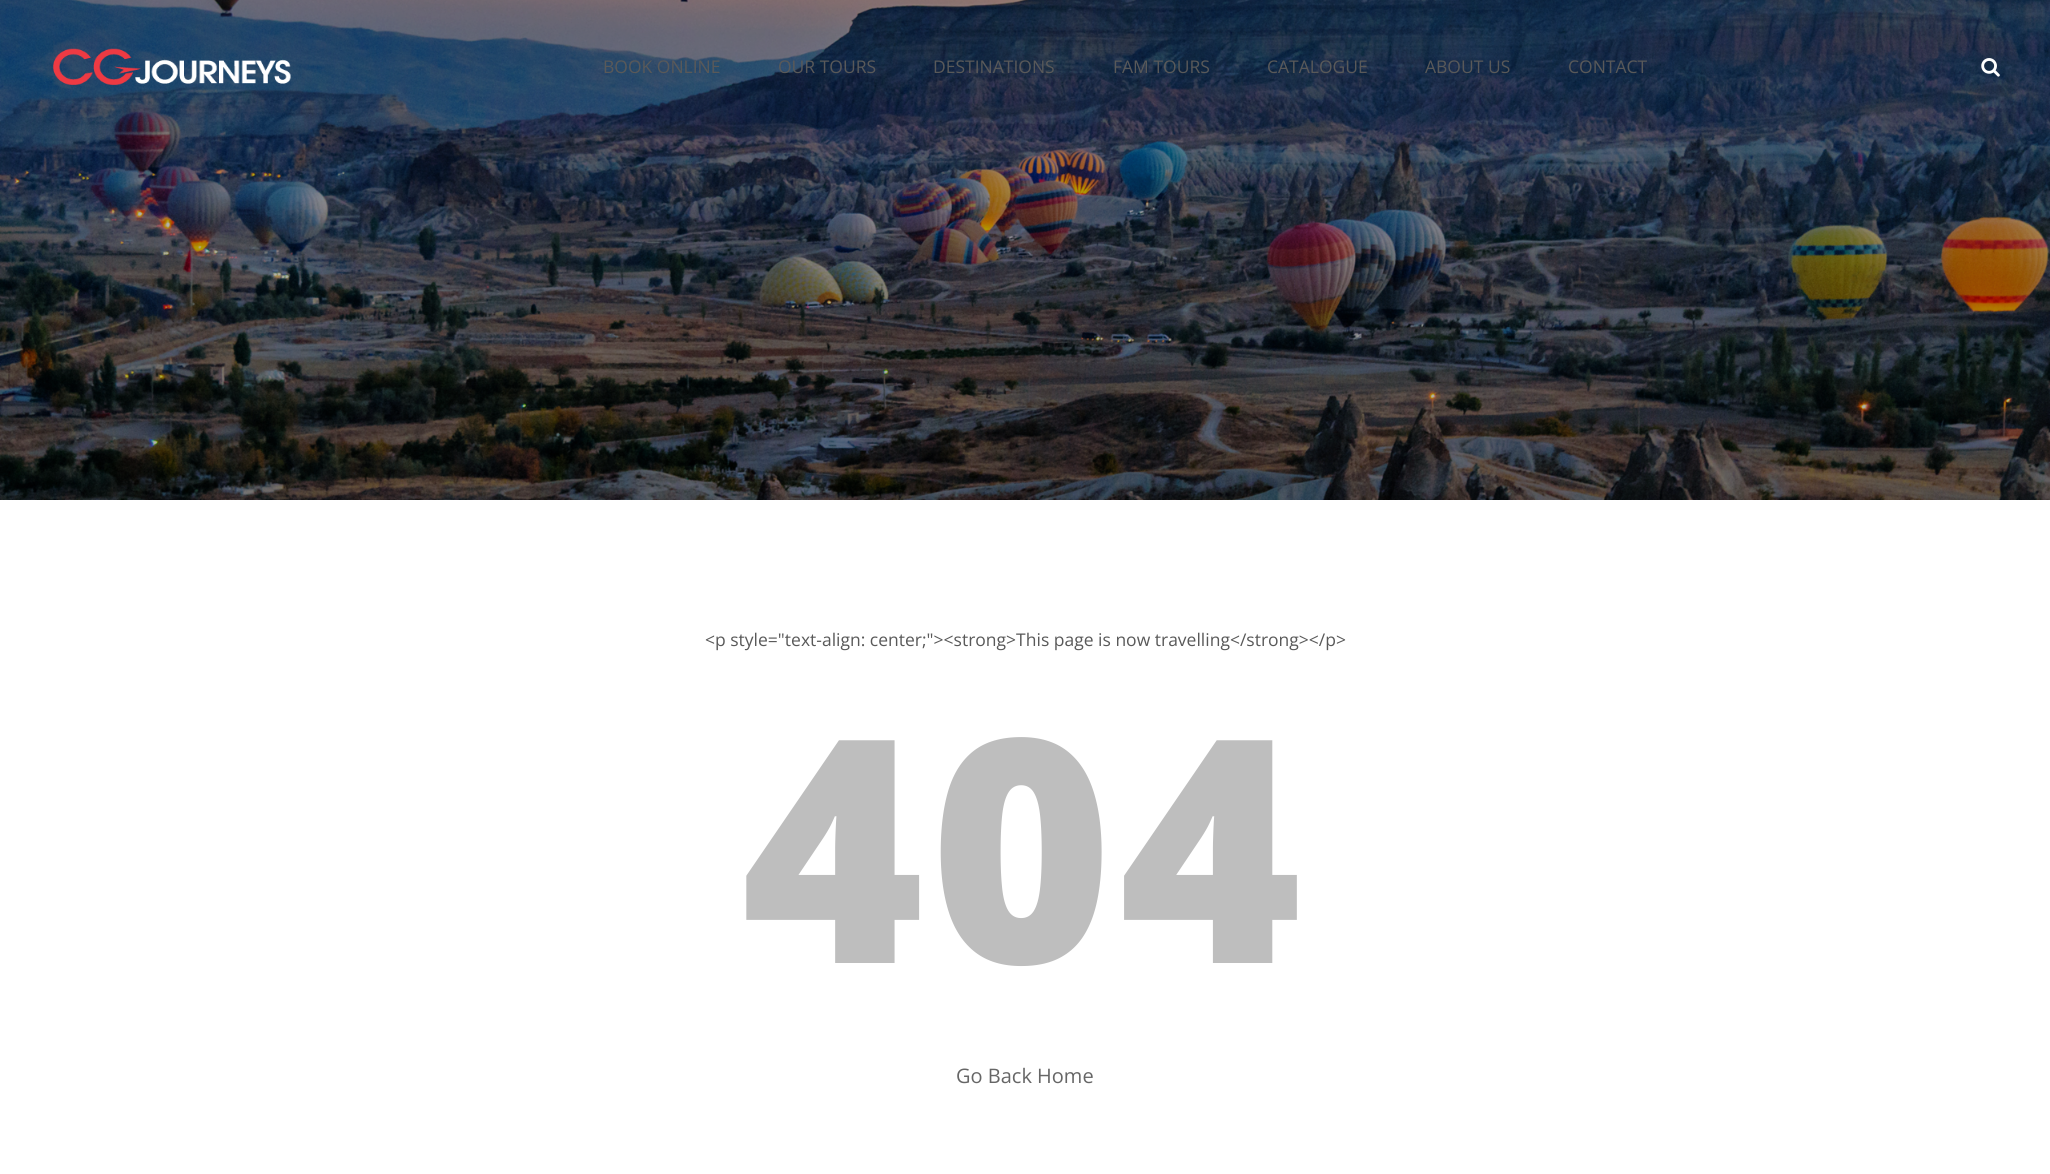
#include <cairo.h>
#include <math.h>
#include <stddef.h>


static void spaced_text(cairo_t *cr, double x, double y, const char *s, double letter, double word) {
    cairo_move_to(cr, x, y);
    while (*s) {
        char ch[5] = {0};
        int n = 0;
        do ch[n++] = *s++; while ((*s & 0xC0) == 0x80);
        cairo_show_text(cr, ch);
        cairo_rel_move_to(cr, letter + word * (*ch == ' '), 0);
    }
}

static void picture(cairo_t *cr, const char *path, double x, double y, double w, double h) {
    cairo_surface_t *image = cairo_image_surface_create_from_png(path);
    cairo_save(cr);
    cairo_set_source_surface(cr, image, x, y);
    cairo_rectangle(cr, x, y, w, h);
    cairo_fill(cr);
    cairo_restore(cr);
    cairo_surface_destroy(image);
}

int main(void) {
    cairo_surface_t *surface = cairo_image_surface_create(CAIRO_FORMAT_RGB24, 2050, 1174);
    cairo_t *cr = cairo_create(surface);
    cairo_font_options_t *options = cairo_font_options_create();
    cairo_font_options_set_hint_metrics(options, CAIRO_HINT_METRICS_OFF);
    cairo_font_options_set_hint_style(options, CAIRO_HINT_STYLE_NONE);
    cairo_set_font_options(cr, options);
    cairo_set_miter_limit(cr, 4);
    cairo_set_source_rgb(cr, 1, 1, 1);
    cairo_paint(cr);
    picture(cr, "img1.png", 0, 0, 2050, 500);
    picture(cr, "img2.png", 53, 48, 238, 37);
    cairo_select_font_face(cr, "Open Sans", CAIRO_FONT_SLANT_NORMAL, CAIRO_FONT_WEIGHT_NORMAL);
    cairo_set_font_size(cr, 17.5);
    cairo_set_source_rgb(cr, 0.349, 0.349, 0.349);
    cairo_move_to(cr, 603, 73);
    cairo_show_text(cr, "BOOK ONLINE");
    cairo_move_to(cr, 778, 73);
    cairo_show_text(cr, "OUR TOURS");
    cairo_move_to(cr, 933, 73);
    cairo_show_text(cr, "DESTINATIONS");
    cairo_move_to(cr, 1113, 73);
    cairo_show_text(cr, "FAM TOURS");
    cairo_move_to(cr, 1267, 73);
    cairo_show_text(cr, "CATALOGUE");
    cairo_move_to(cr, 1425, 73);
    cairo_show_text(cr, "ABOUT US");
    cairo_move_to(cr, 1568, 73);
    cairo_show_text(cr, "CONTACT");
    picture(cr, "img3.png", 1981, 58, 19, 19);
    cairo_move_to(cr, 705, 646);
    cairo_show_text(cr, "<p style=\"text-align: center;\"><strong>This page is now travelling</strong></p>");
    cairo_select_font_face(cr, "Open Sans ExtraBold", CAIRO_FONT_SLANT_NORMAL, CAIRO_FONT_WEIGHT_NORMAL);
    cairo_set_font_size(cr, 312);
    cairo_set_source_rgb(cr, 0.745, 0.745, 0.745);
    spaced_text(cr, 741, 963, "404", 6, 0);
    cairo_select_font_face(cr, "Open Sans", CAIRO_FONT_SLANT_NORMAL, CAIRO_FONT_WEIGHT_NORMAL);
    cairo_set_font_size(cr, 20);
    cairo_set_source_rgb(cr, 0.4, 0.4, 0.4);
    cairo_move_to(cr, 956, 1083);
    cairo_show_text(cr, "Go Back Home");
    cairo_surface_write_to_png(surface, "page.png");
    cairo_font_options_destroy(options);
    cairo_destroy(cr);
    cairo_surface_destroy(surface);
    return 0;
}
